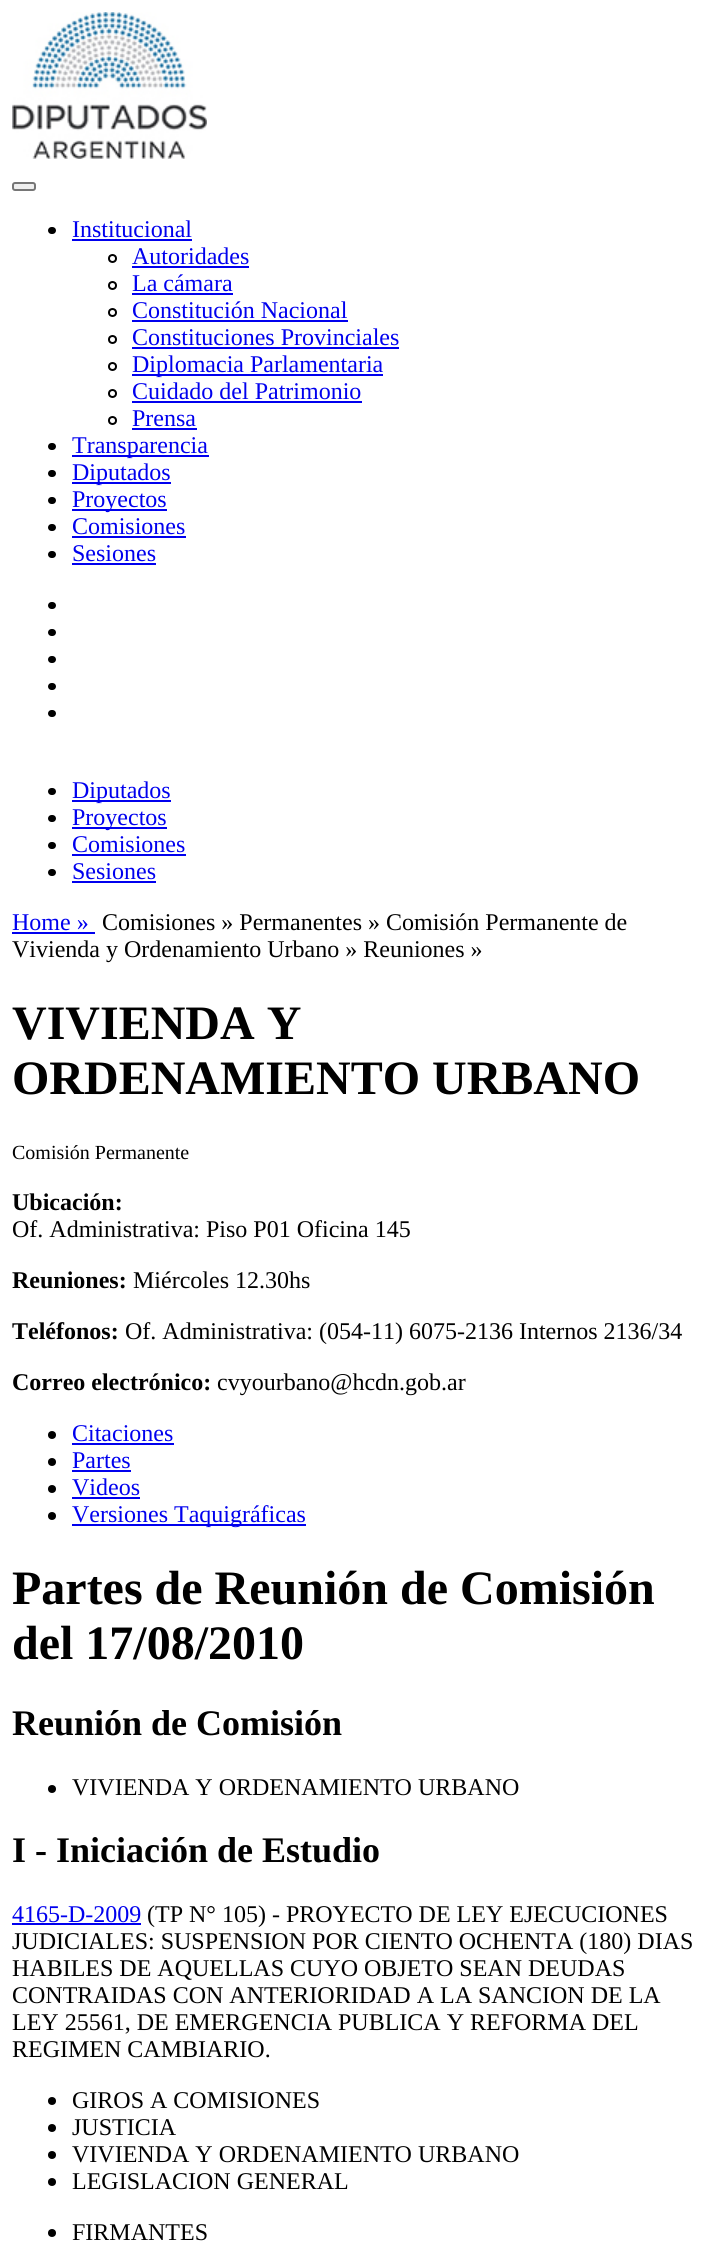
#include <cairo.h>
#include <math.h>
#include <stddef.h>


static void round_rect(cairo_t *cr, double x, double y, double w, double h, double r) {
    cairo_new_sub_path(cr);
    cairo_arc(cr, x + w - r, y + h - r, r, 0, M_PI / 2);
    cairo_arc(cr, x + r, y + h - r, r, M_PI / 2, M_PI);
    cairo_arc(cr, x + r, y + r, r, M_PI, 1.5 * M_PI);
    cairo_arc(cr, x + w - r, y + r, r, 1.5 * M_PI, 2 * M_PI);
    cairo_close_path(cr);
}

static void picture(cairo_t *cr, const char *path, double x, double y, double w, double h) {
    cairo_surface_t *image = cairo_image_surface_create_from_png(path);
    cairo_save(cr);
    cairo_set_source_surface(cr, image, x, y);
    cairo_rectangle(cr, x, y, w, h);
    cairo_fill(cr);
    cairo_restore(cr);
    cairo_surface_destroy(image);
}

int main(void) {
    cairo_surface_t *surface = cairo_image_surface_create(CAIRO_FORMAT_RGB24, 717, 2242);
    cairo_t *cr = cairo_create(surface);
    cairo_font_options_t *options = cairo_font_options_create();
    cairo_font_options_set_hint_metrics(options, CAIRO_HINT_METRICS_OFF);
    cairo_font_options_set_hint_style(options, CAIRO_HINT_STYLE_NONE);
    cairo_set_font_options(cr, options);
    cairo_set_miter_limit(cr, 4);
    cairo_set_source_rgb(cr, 1, 1, 1);
    cairo_paint(cr);
    picture(cr, "img1.png", 12, 12, 195, 147);
    cairo_set_source_rgb(cr, 0.937, 0.937, 0.937);
    round_rect(cr, 13, 183, 22, 7, 2);
    cairo_fill_preserve(cr);
    cairo_set_source_rgb(cr, 0.463, 0.463, 0.463);
    cairo_stroke(cr);
    cairo_set_source_rgb(cr, 0, 0, 0);
    round_rect(cr, 48, 227, 8, 7, 3.5);
    cairo_fill(cr);
    cairo_select_font_face(cr, "Liberation Serif", CAIRO_FONT_SLANT_NORMAL, CAIRO_FONT_WEIGHT_NORMAL);
    cairo_set_font_size(cr, 24);
    cairo_set_source_rgb(cr, 0, 0, 0.933);
    cairo_move_to(cr, 72, 237);
    cairo_show_text(cr, "Institucional");
    cairo_rectangle(cr, 72, 239, 120, 2);
    cairo_fill(cr);
    cairo_arc(cr, 112.5, 258.5, 3.5, 0, 2 * M_PI);
    cairo_set_source_rgb(cr, 0, 0, 0);
    cairo_stroke(cr);
    cairo_set_source_rgb(cr, 0, 0, 0.933);
    cairo_move_to(cr, 132, 264);
    cairo_show_text(cr, "Autoridades");
    cairo_rectangle(cr, 132, 266, 117, 2);
    cairo_fill(cr);
    cairo_arc(cr, 112.5, 285.5, 3.5, 0, 2 * M_PI);
    cairo_set_source_rgb(cr, 0, 0, 0);
    cairo_stroke(cr);
    cairo_set_source_rgb(cr, 0, 0, 0.933);
    cairo_move_to(cr, 132, 291);
    cairo_show_text(cr, "La cámara");
    cairo_rectangle(cr, 132, 293, 101, 2);
    cairo_fill(cr);
    cairo_arc(cr, 112.5, 312.5, 3.5, 0, 2 * M_PI);
    cairo_set_source_rgb(cr, 0, 0, 0);
    cairo_stroke(cr);
    cairo_set_source_rgb(cr, 0, 0, 0.933);
    cairo_move_to(cr, 132, 318);
    cairo_show_text(cr, "Constitución Nacional");
    cairo_rectangle(cr, 132, 320, 216, 2);
    cairo_fill(cr);
    cairo_arc(cr, 112.5, 339.5, 3.5, 0, 2 * M_PI);
    cairo_set_source_rgb(cr, 0, 0, 0);
    cairo_stroke(cr);
    cairo_set_source_rgb(cr, 0, 0, 0.933);
    cairo_move_to(cr, 132, 345);
    cairo_show_text(cr, "Constituciones Provinciales");
    cairo_rectangle(cr, 132, 347, 267, 2);
    cairo_fill(cr);
    cairo_arc(cr, 112.5, 366.5, 3.5, 0, 2 * M_PI);
    cairo_set_source_rgb(cr, 0, 0, 0);
    cairo_stroke(cr);
    cairo_set_source_rgb(cr, 0, 0, 0.933);
    cairo_rectangle(cr, 132, 374, 251, 2);
    cairo_fill(cr);
    cairo_move_to(cr, 132, 372);
    cairo_show_text(cr, "Diplomacia Parlamentaria");
    cairo_new_path(cr);
    cairo_arc(cr, 112.5, 393.5, 3.5, 0, 2 * M_PI);
    cairo_set_source_rgb(cr, 0, 0, 0);
    cairo_stroke(cr);
    cairo_set_source_rgb(cr, 0, 0, 0.933);
    cairo_move_to(cr, 132, 399);
    cairo_show_text(cr, "Cuidado del Patrimonio");
    cairo_rectangle(cr, 132, 401, 230, 2);
    cairo_fill(cr);
    cairo_arc(cr, 112.5, 420.5, 3.5, 0, 2 * M_PI);
    cairo_set_source_rgb(cr, 0, 0, 0);
    cairo_stroke(cr);
    cairo_set_source_rgb(cr, 0, 0, 0.933);
    cairo_move_to(cr, 132, 426);
    cairo_show_text(cr, "Prensa");
    cairo_rectangle(cr, 132, 428, 65, 2);
    cairo_fill(cr);
    cairo_set_source_rgb(cr, 0, 0, 0);
    round_rect(cr, 48, 443, 8, 7, 3.5);
    cairo_fill(cr);
    cairo_set_source_rgb(cr, 0, 0, 0.933);
    cairo_rectangle(cr, 72, 455, 137, 2);
    cairo_fill(cr);
    cairo_move_to(cr, 72, 453);
    cairo_show_text(cr, "Transparencia");
    cairo_set_source_rgb(cr, 0, 0, 0);
    round_rect(cr, 48, 470, 8, 7, 3.5);
    cairo_fill(cr);
    cairo_set_source_rgb(cr, 0, 0, 0.933);
    cairo_rectangle(cr, 72, 482, 99, 2);
    cairo_fill(cr);
    cairo_move_to(cr, 72, 480);
    cairo_show_text(cr, "Diputados");
    cairo_set_source_rgb(cr, 0, 0, 0);
    round_rect(cr, 48, 497, 8, 7, 3.5);
    cairo_fill(cr);
    cairo_set_source_rgb(cr, 0, 0, 0.933);
    cairo_rectangle(cr, 72, 509, 95, 2);
    cairo_fill(cr);
    cairo_move_to(cr, 72, 507);
    cairo_show_text(cr, "Proyectos");
    cairo_set_source_rgb(cr, 0, 0, 0);
    round_rect(cr, 48, 524, 8, 7, 3.5);
    cairo_fill(cr);
    cairo_set_source_rgb(cr, 0, 0, 0.933);
    cairo_move_to(cr, 72, 534);
    cairo_show_text(cr, "Comisiones");
    cairo_rectangle(cr, 72, 536, 114, 2);
    cairo_fill(cr);
    cairo_set_source_rgb(cr, 0, 0, 0);
    round_rect(cr, 48, 551, 8, 7, 3.5);
    cairo_fill(cr);
    cairo_set_source_rgb(cr, 0, 0, 0.933);
    cairo_move_to(cr, 72, 561);
    cairo_show_text(cr, "Sesiones");
    cairo_rectangle(cr, 72, 563, 84, 2);
    cairo_fill(cr);
    cairo_set_source_rgb(cr, 0, 0, 0);
    round_rect(cr, 48, 602, 8, 7, 3.5);
    cairo_fill(cr);
    round_rect(cr, 48, 629, 8, 7, 3.5);
    cairo_fill(cr);
    round_rect(cr, 48, 656, 8, 7, 3.5);
    cairo_fill(cr);
    round_rect(cr, 48, 683, 8, 7, 3.5);
    cairo_fill(cr);
    round_rect(cr, 48, 710, 8, 7, 3.5);
    cairo_fill(cr);
    round_rect(cr, 48, 788, 8, 7, 3.5);
    cairo_fill(cr);
    cairo_set_source_rgb(cr, 0, 0, 0.933);
    cairo_rectangle(cr, 72, 800, 99, 2);
    cairo_fill(cr);
    cairo_move_to(cr, 72, 798);
    cairo_show_text(cr, "Diputados");
    cairo_set_source_rgb(cr, 0, 0, 0);
    round_rect(cr, 48, 815, 8, 7, 3.5);
    cairo_fill(cr);
    cairo_set_source_rgb(cr, 0, 0, 0.933);
    cairo_rectangle(cr, 72, 827, 95, 2);
    cairo_fill(cr);
    cairo_move_to(cr, 72, 825);
    cairo_show_text(cr, "Proyectos");
    cairo_set_source_rgb(cr, 0, 0, 0);
    round_rect(cr, 48, 842, 8, 7, 3.5);
    cairo_fill(cr);
    cairo_set_source_rgb(cr, 0, 0, 0.933);
    cairo_move_to(cr, 72, 852);
    cairo_show_text(cr, "Comisiones");
    cairo_rectangle(cr, 72, 854, 114, 2);
    cairo_fill(cr);
    cairo_set_source_rgb(cr, 0, 0, 0);
    round_rect(cr, 48, 869, 8, 7, 3.5);
    cairo_fill(cr);
    cairo_set_source_rgb(cr, 0, 0, 0.933);
    cairo_move_to(cr, 72, 879);
    cairo_show_text(cr, "Sesiones");
    cairo_rectangle(cr, 72, 881, 84, 2);
    cairo_fill(cr);
    cairo_move_to(cr, 12, 930);
    cairo_show_text(cr, "Home »");
    cairo_rectangle(cr, 12, 932, 83, 2);
    cairo_fill(cr);
    cairo_set_source_rgb(cr, 0, 0, 0);
    cairo_move_to(cr, 102, 930);
    cairo_show_text(cr, "Comisiones » Permanentes » Comisión Permanente de");
    cairo_move_to(cr, 12, 957);
    cairo_show_text(cr, "Vivienda y Ordenamiento Urbano » Reuniones »");
    cairo_select_font_face(cr, "Liberation Serif", CAIRO_FONT_SLANT_NORMAL, CAIRO_FONT_WEIGHT_BOLD);
    cairo_set_font_size(cr, 48);
    cairo_move_to(cr, 12, 1039);
    cairo_show_text(cr, "VIVIENDA Y");
    cairo_move_to(cr, 12, 1094);
    cairo_show_text(cr, "ORDENAMIENTO URBANO");
    cairo_select_font_face(cr, "Liberation Serif", CAIRO_FONT_SLANT_NORMAL, CAIRO_FONT_WEIGHT_NORMAL);
    cairo_set_font_size(cr, 20);
    cairo_move_to(cr, 12, 1159);
    cairo_show_text(cr, "Comisión Permanente");
    cairo_select_font_face(cr, "Liberation Serif", CAIRO_FONT_SLANT_NORMAL, CAIRO_FONT_WEIGHT_BOLD);
    cairo_set_font_size(cr, 24);
    cairo_move_to(cr, 12, 1210);
    cairo_show_text(cr, "Ubicación:");
    cairo_select_font_face(cr, "Liberation Serif", CAIRO_FONT_SLANT_NORMAL, CAIRO_FONT_WEIGHT_NORMAL);
    cairo_move_to(cr, 12, 1237);
    cairo_show_text(cr, "Of. Administrativa: Piso P01 Oficina 145");
    cairo_select_font_face(cr, "Liberation Serif", CAIRO_FONT_SLANT_NORMAL, CAIRO_FONT_WEIGHT_BOLD);
    cairo_move_to(cr, 12, 1288);
    cairo_show_text(cr, "Reuniones:");
    cairo_select_font_face(cr, "Liberation Serif", CAIRO_FONT_SLANT_NORMAL, CAIRO_FONT_WEIGHT_NORMAL);
    cairo_move_to(cr, 133, 1288);
    cairo_show_text(cr, "Miércoles 12.30hs");
    cairo_select_font_face(cr, "Liberation Serif", CAIRO_FONT_SLANT_NORMAL, CAIRO_FONT_WEIGHT_BOLD);
    cairo_move_to(cr, 12, 1339);
    cairo_show_text(cr, "Teléfonos:");
    cairo_select_font_face(cr, "Liberation Serif", CAIRO_FONT_SLANT_NORMAL, CAIRO_FONT_WEIGHT_NORMAL);
    cairo_move_to(cr, 125, 1339);
    cairo_show_text(cr, "Of. Administrativa: (054-11) 6075-2136 Internos 2136/34");
    cairo_select_font_face(cr, "Liberation Serif", CAIRO_FONT_SLANT_NORMAL, CAIRO_FONT_WEIGHT_BOLD);
    cairo_move_to(cr, 12, 1390);
    cairo_show_text(cr, "Correo electrónico:");
    cairo_select_font_face(cr, "Liberation Serif", CAIRO_FONT_SLANT_NORMAL, CAIRO_FONT_WEIGHT_NORMAL);
    cairo_move_to(cr, 217, 1390);
    cairo_show_text(cr, "cvyourbano@hcdn.gob.ar");
    cairo_new_path(cr);
    cairo_arc(cr, 52, 1435, 4, 0, 2 * M_PI);
    cairo_fill(cr);
    cairo_set_source_rgb(cr, 0, 0, 0.933);
    cairo_move_to(cr, 72, 1441);
    cairo_show_text(cr, "Citaciones");
    cairo_rectangle(cr, 72, 1443, 102, 2);
    cairo_fill(cr);
    cairo_set_source_rgb(cr, 0, 0, 0);
    cairo_arc(cr, 52, 1462, 4, 0, 2 * M_PI);
    cairo_fill(cr);
    cairo_set_source_rgb(cr, 0, 0, 0.933);
    cairo_move_to(cr, 72, 1468);
    cairo_show_text(cr, "Partes");
    cairo_rectangle(cr, 72, 1470, 59, 2);
    cairo_fill(cr);
    cairo_set_source_rgb(cr, 0, 0, 0);
    cairo_arc(cr, 52, 1489, 4, 0, 2 * M_PI);
    cairo_fill(cr);
    cairo_set_source_rgb(cr, 0, 0, 0.933);
    cairo_move_to(cr, 72, 1495);
    cairo_show_text(cr, "Videos");
    cairo_rectangle(cr, 72, 1497, 68, 2);
    cairo_fill(cr);
    cairo_set_source_rgb(cr, 0, 0, 0);
    cairo_arc(cr, 52, 1516, 4, 0, 2 * M_PI);
    cairo_fill(cr);
    cairo_set_source_rgb(cr, 0, 0, 0.933);
    cairo_rectangle(cr, 72, 1524, 234, 2);
    cairo_fill(cr);
    cairo_move_to(cr, 72, 1522);
    cairo_show_text(cr, "Versiones Taquigráficas");
    cairo_select_font_face(cr, "Liberation Serif", CAIRO_FONT_SLANT_NORMAL, CAIRO_FONT_WEIGHT_BOLD);
    cairo_set_font_size(cr, 48);
    cairo_set_source_rgb(cr, 0, 0, 0);
    cairo_move_to(cr, 12, 1604);
    cairo_show_text(cr, "Partes de Reunión de Comisión");
    cairo_move_to(cr, 12, 1659);
    cairo_show_text(cr, "del 17/08/2010");
    cairo_set_font_size(cr, 36);
    cairo_move_to(cr, 12, 1735);
    cairo_show_text(cr, "Reunión de Comisión");
    cairo_new_path(cr);
    cairo_arc(cr, 52, 1789, 4, 0, 2 * M_PI);
    cairo_fill(cr);
    cairo_select_font_face(cr, "Liberation Serif", CAIRO_FONT_SLANT_NORMAL, CAIRO_FONT_WEIGHT_NORMAL);
    cairo_set_font_size(cr, 24);
    cairo_move_to(cr, 72, 1795);
    cairo_show_text(cr, "VIVIENDA Y ORDENAMIENTO URBANO");
    cairo_select_font_face(cr, "Liberation Serif", CAIRO_FONT_SLANT_NORMAL, CAIRO_FONT_WEIGHT_BOLD);
    cairo_set_font_size(cr, 36);
    cairo_move_to(cr, 12, 1862);
    cairo_show_text(cr, "I - Iniciación de Estudio");
    cairo_select_font_face(cr, "Liberation Serif", CAIRO_FONT_SLANT_NORMAL, CAIRO_FONT_WEIGHT_NORMAL);
    cairo_set_font_size(cr, 24);
    cairo_set_source_rgb(cr, 0, 0, 0.933);
    cairo_move_to(cr, 12, 1922);
    cairo_show_text(cr, "4165-D-2009");
    cairo_rectangle(cr, 12, 1923, 129, 2);
    cairo_fill(cr);
    cairo_set_source_rgb(cr, 0, 0, 0);
    cairo_move_to(cr, 147, 1922);
    cairo_show_text(cr, "(TP N° 105) - PROYECTO DE LEY EJECUCIONES");
    cairo_move_to(cr, 12, 1949);
    cairo_show_text(cr, "JUDICIALES: SUSPENSION POR CIENTO OCHENTA (180) DIAS");
    cairo_move_to(cr, 12, 1976);
    cairo_show_text(cr, "HABILES DE AQUELLAS CUYO OBJETO SEAN DEUDAS");
    cairo_move_to(cr, 12, 2003);
    cairo_show_text(cr, "CONTRAIDAS CON ANTERIORIDAD A LA SANCION DE LA");
    cairo_move_to(cr, 12, 2030);
    cairo_show_text(cr, "LEY 25561, DE EMERGENCIA PUBLICA Y REFORMA DEL");
    cairo_move_to(cr, 12, 2057);
    cairo_show_text(cr, "REGIMEN CAMBIARIO.");
    cairo_new_path(cr);
    cairo_arc(cr, 52, 2101, 4, 0, 2 * M_PI);
    cairo_fill(cr);
    cairo_move_to(cr, 72, 2108);
    cairo_show_text(cr, "GIROS A COMISIONES");
    cairo_new_path(cr);
    cairo_arc(cr, 52, 2128, 4, 0, 2 * M_PI);
    cairo_fill(cr);
    cairo_move_to(cr, 72, 2135);
    cairo_show_text(cr, "JUSTICIA");
    cairo_new_path(cr);
    cairo_arc(cr, 52, 2155, 4, 0, 2 * M_PI);
    cairo_fill(cr);
    cairo_move_to(cr, 72, 2162);
    cairo_show_text(cr, "VIVIENDA Y ORDENAMIENTO URBANO");
    cairo_new_path(cr);
    cairo_arc(cr, 52, 2182, 4, 0, 2 * M_PI);
    cairo_fill(cr);
    cairo_move_to(cr, 72, 2189);
    cairo_show_text(cr, "LEGISLACION GENERAL");
    cairo_new_path(cr);
    cairo_arc(cr, 52, 2233, 4, 0, 2 * M_PI);
    cairo_fill(cr);
    cairo_move_to(cr, 72, 2240);
    cairo_show_text(cr, "FIRMANTES");
    cairo_surface_write_to_png(surface, "page.png");
    cairo_font_options_destroy(options);
    cairo_destroy(cr);
    cairo_surface_destroy(surface);
    return 0;
}
